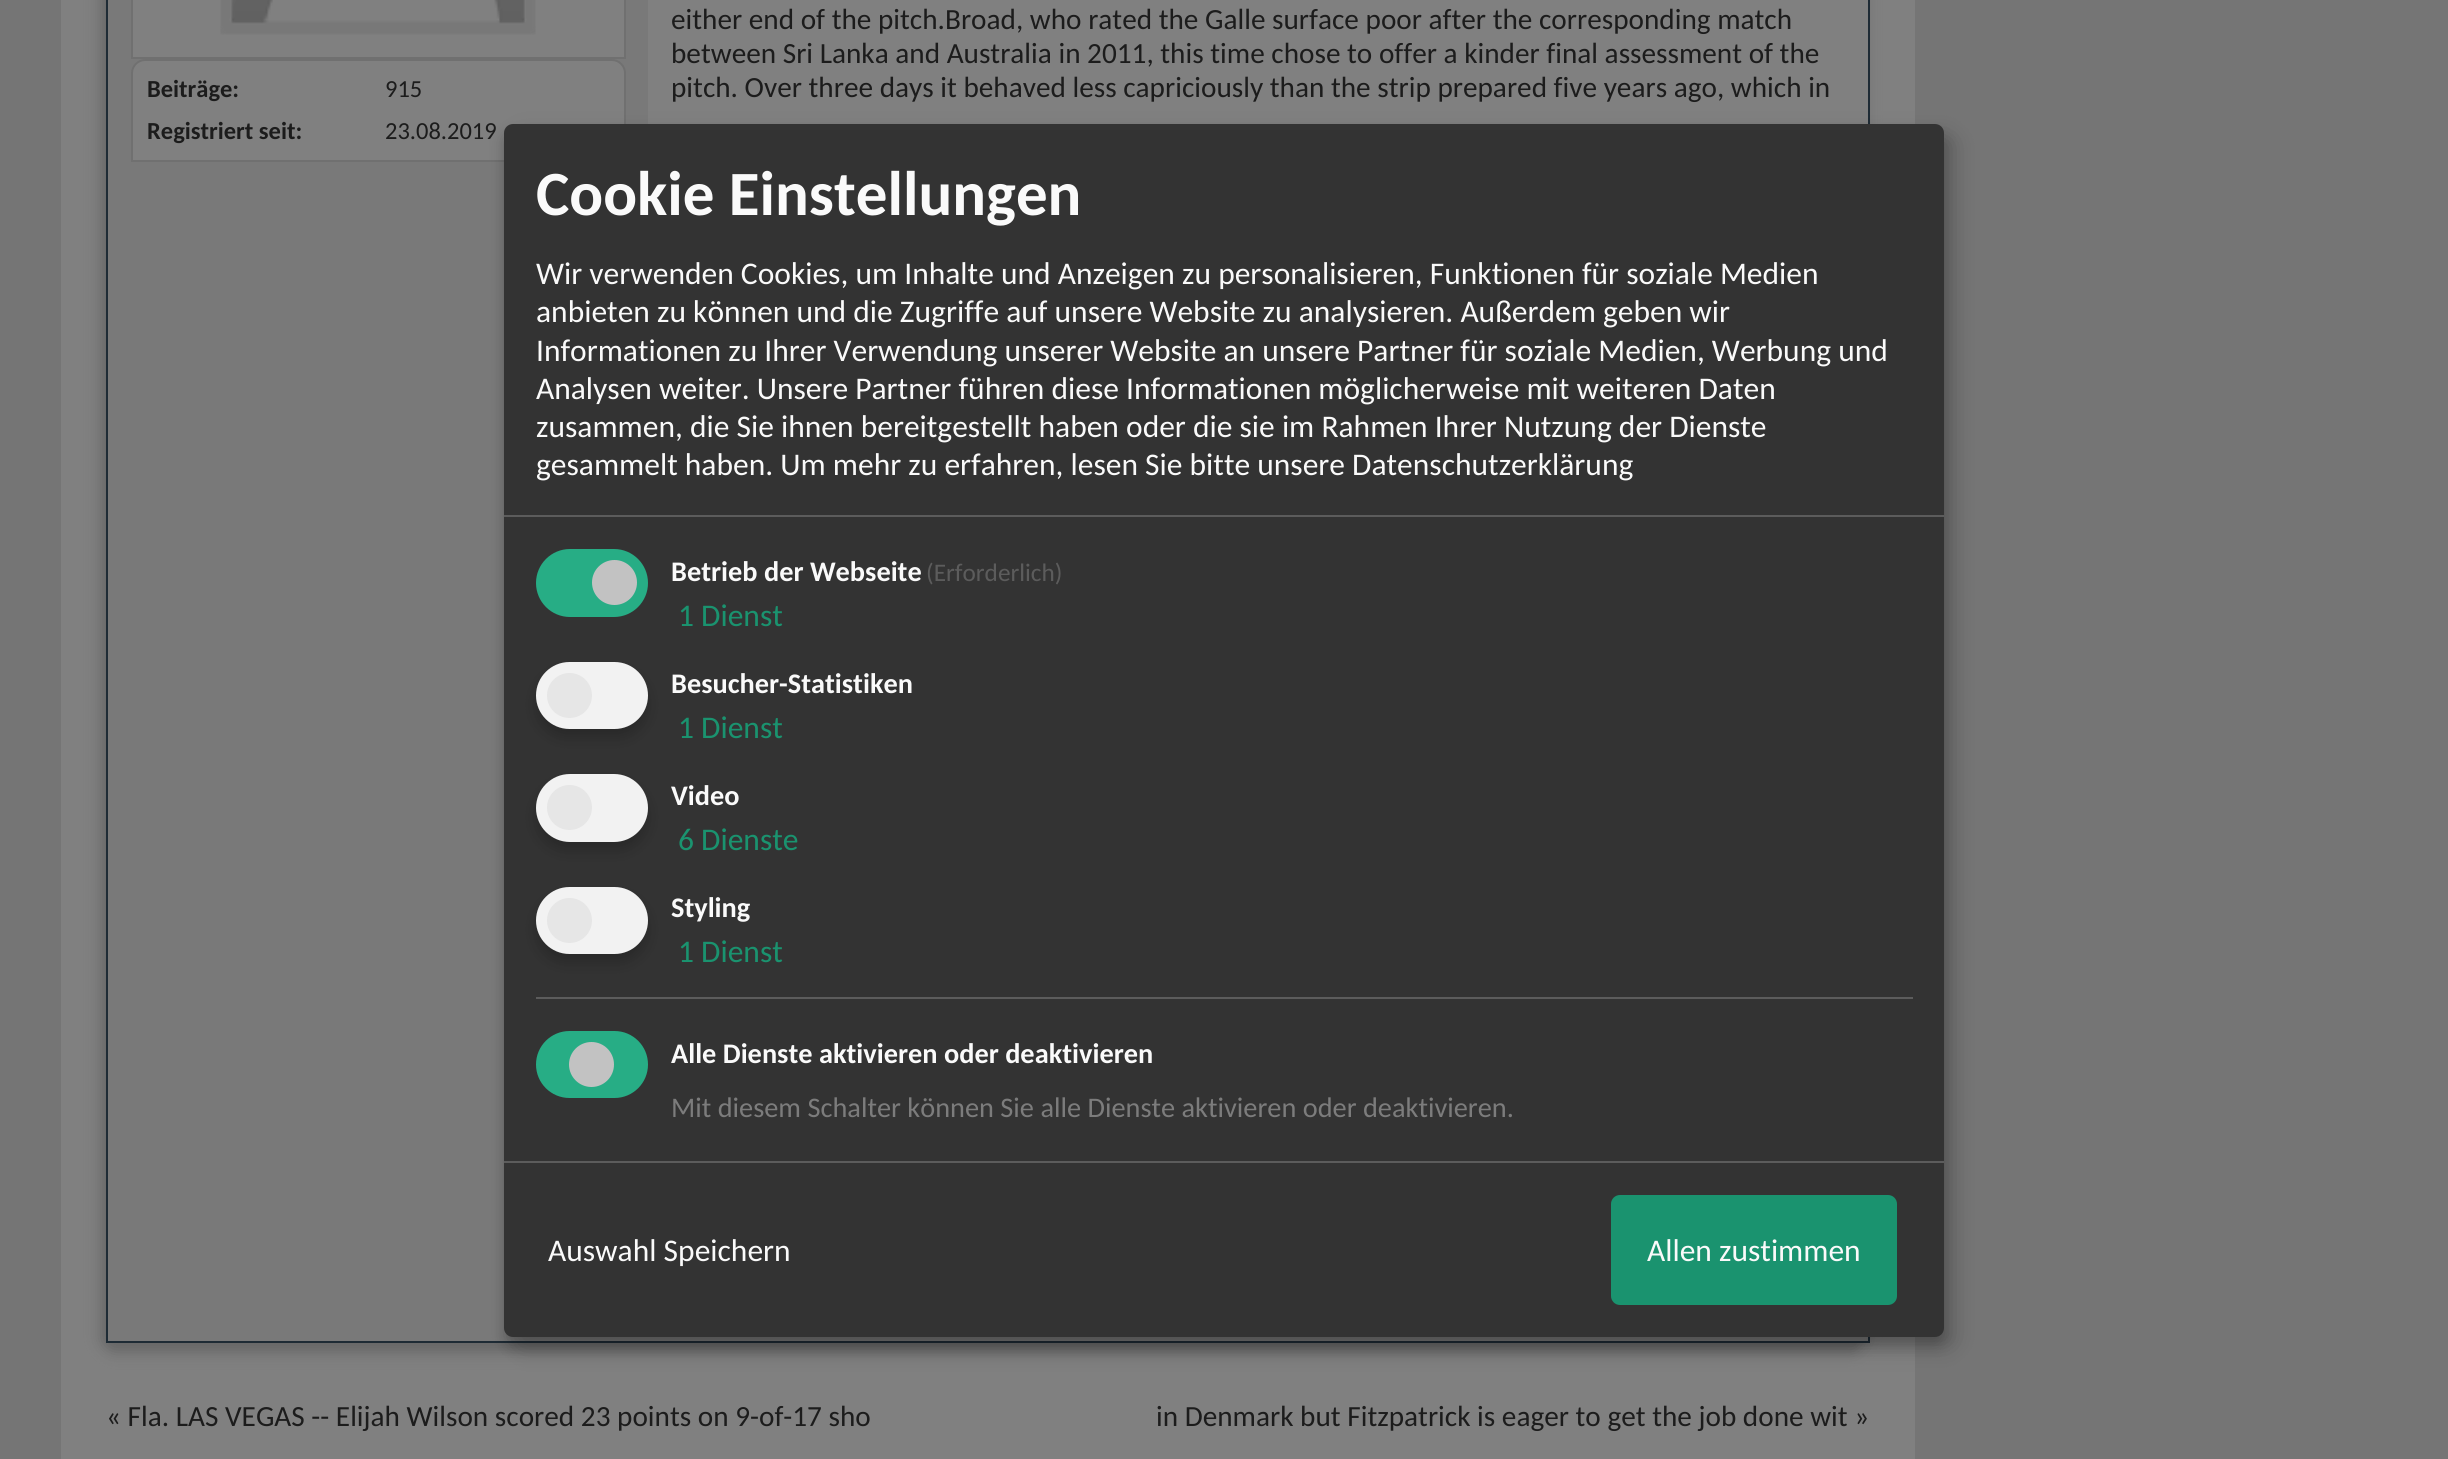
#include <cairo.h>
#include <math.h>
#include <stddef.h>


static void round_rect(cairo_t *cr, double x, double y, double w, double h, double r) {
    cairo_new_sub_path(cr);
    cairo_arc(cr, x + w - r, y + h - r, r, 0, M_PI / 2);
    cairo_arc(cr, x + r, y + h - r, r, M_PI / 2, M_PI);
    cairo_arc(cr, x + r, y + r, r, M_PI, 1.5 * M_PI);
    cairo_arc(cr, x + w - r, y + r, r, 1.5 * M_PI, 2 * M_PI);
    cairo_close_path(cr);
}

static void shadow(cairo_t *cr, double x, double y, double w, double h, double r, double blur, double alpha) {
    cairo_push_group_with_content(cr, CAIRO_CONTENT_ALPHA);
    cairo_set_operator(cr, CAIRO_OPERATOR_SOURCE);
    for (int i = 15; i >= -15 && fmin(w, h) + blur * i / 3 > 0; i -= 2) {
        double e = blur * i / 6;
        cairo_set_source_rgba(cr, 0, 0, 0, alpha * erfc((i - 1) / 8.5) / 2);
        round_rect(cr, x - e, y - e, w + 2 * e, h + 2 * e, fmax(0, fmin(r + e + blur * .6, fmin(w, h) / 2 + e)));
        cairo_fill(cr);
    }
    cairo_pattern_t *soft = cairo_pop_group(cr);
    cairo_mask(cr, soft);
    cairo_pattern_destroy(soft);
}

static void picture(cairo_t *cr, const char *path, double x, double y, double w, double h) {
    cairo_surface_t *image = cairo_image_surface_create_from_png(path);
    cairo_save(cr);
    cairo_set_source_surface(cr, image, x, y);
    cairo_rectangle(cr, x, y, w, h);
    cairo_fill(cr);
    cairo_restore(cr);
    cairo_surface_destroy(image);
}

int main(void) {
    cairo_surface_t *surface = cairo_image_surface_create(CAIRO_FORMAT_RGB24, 2448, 1459);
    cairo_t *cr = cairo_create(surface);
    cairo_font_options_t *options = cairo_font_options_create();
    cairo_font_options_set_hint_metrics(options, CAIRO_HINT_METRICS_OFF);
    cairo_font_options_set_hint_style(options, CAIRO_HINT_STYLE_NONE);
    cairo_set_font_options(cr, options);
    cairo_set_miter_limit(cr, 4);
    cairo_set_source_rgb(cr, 0.459, 0.459, 0.459);
    cairo_paint(cr);
    cairo_set_source_rgb(cr, 0.502, 0.502, 0.502);
    cairo_rectangle(cr, 61, 0, 1854, 1459);
    cairo_fill(cr);
    cairo_save(cr);
    cairo_set_fill_rule(cr, CAIRO_FILL_RULE_EVEN_ODD);
    cairo_new_path(cr);
    cairo_move_to(cr, 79, 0);
    cairo_line_to(cr, 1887, 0);
    cairo_line_to(cr, 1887, 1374);
    cairo_line_to(cr, 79, 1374);
    cairo_close_path(cr);
    cairo_move_to(cr, 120, -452);
    cairo_line_to(cr, 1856, -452);
    cairo_curve_to(cr, 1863.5, -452, 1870, -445.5, 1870, -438);
    cairo_line_to(cr, 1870, 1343);
    cairo_line_to(cr, 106, 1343);
    cairo_line_to(cr, 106, -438);
    cairo_curve_to(cr, 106, -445.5, 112.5, -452, 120, -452);
    cairo_close_path(cr);
    cairo_clip(cr);
    cairo_set_source_rgb(cr, 0.4, 0.4, 0.4);
    shadow(cr, 101, -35, 1764, 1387, 14, 7, 1);
    cairo_restore(cr);
    cairo_rectangle(cr, 107, -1, 1762, 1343);
    cairo_set_source_rgb(cr, 0.118, 0.169, 0.208);
    cairo_stroke(cr);
    cairo_select_font_face(cr, "Carlito", CAIRO_FONT_SLANT_NORMAL, CAIRO_FONT_WEIGHT_NORMAL);
    cairo_set_font_size(cr, 29.25);
    cairo_set_source_rgb(cr, 0.11, 0.11, 0.11);
    cairo_move_to(cr, 671, 29);
    cairo_show_text(cr, "either end of the pitch.Broad, who rated the Galle surface poor after the corresponding match");
    cairo_move_to(cr, 671, 63);
    cairo_show_text(cr, "between Sri Lanka and Australia in 2011, this time chose to offer a kinder final assessment of the");
    cairo_move_to(cr, 671, 97);
    cairo_show_text(cr, "pitch. Over three days it behaved less capriciously than the strip prepared five years ago, which in");
    cairo_set_source_rgb(cr, 0.475, 0.475, 0.475);
    cairo_rectangle(cr, 108, 0, 540, 1267);
    cairo_fill(cr);
    cairo_set_source_rgb(cr, 0.502, 0.502, 0.502);
    cairo_rectangle(cr, 132, -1, 493, 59);
    cairo_fill_preserve(cr);
    cairo_set_source_rgb(cr, 0.439, 0.439, 0.439);
    cairo_stroke(cr);
    picture(cr, "img1.png", 220, 0, 316, 35);
    cairo_set_source_rgb(cr, 0.502, 0.502, 0.502);
    cairo_new_path(cr);
    cairo_move_to(cr, 145, 60);
    cairo_line_to(cr, 612, 60);
    cairo_curve_to(cr, 619, 60, 625, 66, 625, 73);
    cairo_line_to(cr, 625, 161);
    cairo_line_to(cr, 132, 161);
    cairo_line_to(cr, 132, 73);
    cairo_curve_to(cr, 132, 66, 138, 60, 145, 60);
    cairo_close_path(cr);
    cairo_fill_preserve(cr);
    cairo_set_source_rgb(cr, 0.439, 0.439, 0.439);
    cairo_stroke(cr);
    cairo_select_font_face(cr, "Carlito", CAIRO_FONT_SLANT_NORMAL, CAIRO_FONT_WEIGHT_BOLD);
    cairo_set_font_size(cr, 24.5);
    cairo_set_source_rgb(cr, 0.11, 0.11, 0.11);
    cairo_move_to(cr, 147, 97);
    cairo_show_text(cr, "Beiträge:");
    cairo_select_font_face(cr, "Carlito", CAIRO_FONT_SLANT_NORMAL, CAIRO_FONT_WEIGHT_NORMAL);
    cairo_move_to(cr, 385, 97);
    cairo_show_text(cr, "915");
    cairo_select_font_face(cr, "Carlito", CAIRO_FONT_SLANT_NORMAL, CAIRO_FONT_WEIGHT_BOLD);
    cairo_move_to(cr, 147, 139);
    cairo_show_text(cr, "Registriert seit:");
    cairo_select_font_face(cr, "Carlito", CAIRO_FONT_SLANT_NORMAL, CAIRO_FONT_WEIGHT_NORMAL);
    cairo_move_to(cr, 385, 139);
    cairo_show_text(cr, "23.08.2019");
    cairo_set_source_rgb(cr, 0.475, 0.475, 0.475);
    cairo_rectangle(cr, 108, 1267, 1760, 74);
    cairo_fill(cr);
    cairo_set_font_size(cr, 29.25);
    cairo_set_source_rgb(cr, 0.11, 0.11, 0.11);
    cairo_move_to(cr, 106, 1426);
    cairo_show_text(cr, "« Fla. LAS VEGAS -- Elijah Wilson scored 23 points on 9-of-17 sho");
    cairo_move_to(cr, 1156, 1426);
    cairo_show_text(cr, "in Denmark but Fitzpatrick is eager to get the job done wit »");
    cairo_set_source_rgb(cr, 0, 0, 0);
    shadow(cr, 515, 135, 1440, 1213, 9, 11, 0.19);
    shadow(cr, 504, 133, 1440, 1213, 9, 7, 0.2);
    cairo_set_source_rgb(cr, 0.2, 0.2, 0.2);
    round_rect(cr, 504, 124, 1440, 1213, 9);
    cairo_fill(cr);
    cairo_set_source_rgb(cr, 0.361, 0.361, 0.361);
    cairo_rectangle(cr, 504, 515, 1440, 2);
    cairo_fill(cr);
    cairo_select_font_face(cr, "Carlito", CAIRO_FONT_SLANT_NORMAL, CAIRO_FONT_WEIGHT_BOLD);
    cairo_set_font_size(cr, 63);
    cairo_set_source_rgb(cr, 0.98, 0.98, 0.98);
    cairo_move_to(cr, 536, 215);
    cairo_show_text(cr, "Cookie Einstellungen");
    cairo_select_font_face(cr, "Carlito", CAIRO_FONT_SLANT_NORMAL, CAIRO_FONT_WEIGHT_NORMAL);
    cairo_set_font_size(cr, 31.5);
    cairo_move_to(cr, 536, 284);
    cairo_show_text(cr, "Wir verwenden Cookies, um Inhalte und Anzeigen zu personalisieren, Funktionen für soziale Medien");
    cairo_move_to(cr, 536, 322);
    cairo_show_text(cr, "anbieten zu können und die Zugriffe auf unsere Website zu analysieren. Außerdem geben wir");
    cairo_move_to(cr, 536, 361);
    cairo_show_text(cr, "Informationen zu Ihrer Verwendung unserer Website an unsere Partner für soziale Medien, Werbung und");
    cairo_move_to(cr, 536, 399);
    cairo_show_text(cr, "Analysen weiter. Unsere Partner führen diese Informationen möglicherweise mit weiteren Daten");
    cairo_move_to(cr, 536, 437);
    cairo_show_text(cr, "zusammen, die Sie ihnen bereitgestellt haben oder die sie im Rahmen Ihrer Nutzung der Dienste");
    cairo_move_to(cr, 536, 475);
    cairo_show_text(cr, "gesammelt haben. Um mehr zu erfahren, lesen Sie bitte unsere Datenschutzerklärung");
    cairo_set_source_rgb(cr, 0.153, 0.678, 0.522);
    round_rect(cr, 536, 549, 112, 68, 34);
    cairo_fill(cr);
    cairo_set_source_rgb(cr, 0.761, 0.761, 0.761);
    cairo_arc(cr, 614.5, 582.5, 22.5, 0, 2 * M_PI);
    cairo_fill(cr);
    cairo_select_font_face(cr, "Carlito", CAIRO_FONT_SLANT_NORMAL, CAIRO_FONT_WEIGHT_BOLD);
    cairo_set_font_size(cr, 28.35);
    cairo_set_source_rgb(cr, 0.98, 0.98, 0.98);
    cairo_move_to(cr, 671, 581);
    cairo_show_text(cr, "Betrieb der Webseite");
    cairo_select_font_face(cr, "Carlito", CAIRO_FONT_SLANT_NORMAL, CAIRO_FONT_WEIGHT_NORMAL);
    cairo_set_font_size(cr, 25.25);
    cairo_set_source_rgb(cr, 0.361, 0.361, 0.361);
    cairo_move_to(cr, 926, 581);
    cairo_show_text(cr, "(Erforderlich)");
    cairo_set_font_size(cr, 31.5);
    cairo_set_source_rgb(cr, 0.102, 0.576, 0.435);
    cairo_move_to(cr, 678, 626);
    cairo_show_text(cr, "1 Dienst");
    cairo_set_source_rgb(cr, 0, 0, 0);
    shadow(cr, 536, 671, 112, 67, 33.5, 7, 0.2);
    cairo_set_source_rgb(cr, 0.949, 0.949, 0.949);
    round_rect(cr, 536, 662, 112, 67, 33.5);
    cairo_fill(cr);
    cairo_set_source_rgb(cr, 0.902, 0.902, 0.902);
    cairo_arc(cr, 569.5, 695.5, 22.5, 0, 2 * M_PI);
    cairo_fill(cr);
    cairo_select_font_face(cr, "Carlito", CAIRO_FONT_SLANT_NORMAL, CAIRO_FONT_WEIGHT_BOLD);
    cairo_set_font_size(cr, 28.35);
    cairo_set_source_rgb(cr, 0.98, 0.98, 0.98);
    cairo_move_to(cr, 671, 693);
    cairo_show_text(cr, "Besucher-Statistiken");
    cairo_select_font_face(cr, "Carlito", CAIRO_FONT_SLANT_NORMAL, CAIRO_FONT_WEIGHT_NORMAL);
    cairo_set_font_size(cr, 31.5);
    cairo_set_source_rgb(cr, 0.102, 0.576, 0.435);
    cairo_move_to(cr, 678, 738);
    cairo_show_text(cr, "1 Dienst");
    cairo_set_source_rgb(cr, 0, 0, 0);
    shadow(cr, 536, 783, 112, 68, 34, 7, 0.2);
    cairo_set_source_rgb(cr, 0.949, 0.949, 0.949);
    round_rect(cr, 536, 774, 112, 68, 34);
    cairo_fill(cr);
    cairo_set_source_rgb(cr, 0.902, 0.902, 0.902);
    cairo_arc(cr, 569.5, 807.5, 22.5, 0, 2 * M_PI);
    cairo_fill(cr);
    cairo_select_font_face(cr, "Carlito", CAIRO_FONT_SLANT_NORMAL, CAIRO_FONT_WEIGHT_BOLD);
    cairo_set_font_size(cr, 28.35);
    cairo_set_source_rgb(cr, 0.98, 0.98, 0.98);
    cairo_move_to(cr, 671, 805);
    cairo_show_text(cr, "Video");
    cairo_select_font_face(cr, "Carlito", CAIRO_FONT_SLANT_NORMAL, CAIRO_FONT_WEIGHT_NORMAL);
    cairo_set_font_size(cr, 31.5);
    cairo_set_source_rgb(cr, 0.102, 0.576, 0.435);
    cairo_move_to(cr, 678, 850);
    cairo_show_text(cr, "6 Dienste");
    cairo_set_source_rgb(cr, 0, 0, 0);
    shadow(cr, 536, 896, 112, 67, 33.5, 7, 0.2);
    cairo_set_source_rgb(cr, 0.949, 0.949, 0.949);
    round_rect(cr, 536, 887, 112, 67, 33.5);
    cairo_fill(cr);
    cairo_set_source_rgb(cr, 0.902, 0.902, 0.902);
    cairo_arc(cr, 569.5, 920.5, 22.5, 0, 2 * M_PI);
    cairo_fill(cr);
    cairo_select_font_face(cr, "Carlito", CAIRO_FONT_SLANT_NORMAL, CAIRO_FONT_WEIGHT_BOLD);
    cairo_set_font_size(cr, 28.35);
    cairo_set_source_rgb(cr, 0.98, 0.98, 0.98);
    cairo_move_to(cr, 671, 917);
    cairo_show_text(cr, "Styling");
    cairo_select_font_face(cr, "Carlito", CAIRO_FONT_SLANT_NORMAL, CAIRO_FONT_WEIGHT_NORMAL);
    cairo_set_font_size(cr, 31.5);
    cairo_set_source_rgb(cr, 0.102, 0.576, 0.435);
    cairo_move_to(cr, 678, 962);
    cairo_show_text(cr, "1 Dienst");
    cairo_set_source_rgb(cr, 0.361, 0.361, 0.361);
    cairo_rectangle(cr, 536, 997, 1377, 2);
    cairo_fill(cr);
    cairo_set_source_rgb(cr, 0.153, 0.678, 0.522);
    round_rect(cr, 536, 1031, 112, 67, 33.5);
    cairo_fill(cr);
    cairo_set_source_rgb(cr, 0.761, 0.761, 0.761);
    cairo_arc(cr, 591.5, 1064.5, 22.5, 0, 2 * M_PI);
    cairo_fill(cr);
    cairo_select_font_face(cr, "Carlito", CAIRO_FONT_SLANT_NORMAL, CAIRO_FONT_WEIGHT_BOLD);
    cairo_set_font_size(cr, 28.35);
    cairo_set_source_rgb(cr, 0.98, 0.98, 0.98);
    cairo_move_to(cr, 671, 1063);
    cairo_show_text(cr, "Alle Dienste aktivieren oder deaktivieren");
    cairo_select_font_face(cr, "Carlito", CAIRO_FONT_SLANT_NORMAL, CAIRO_FONT_WEIGHT_NORMAL);
    cairo_set_source_rgb(cr, 0.486, 0.486, 0.486);
    cairo_move_to(cr, 671, 1117);
    cairo_show_text(cr, "Mit diesem Schalter können Sie alle Dienste aktivieren oder deaktivieren.");
    cairo_set_source_rgb(cr, 0.361, 0.361, 0.361);
    cairo_rectangle(cr, 504, 1161, 1440, 2);
    cairo_fill(cr);
    cairo_set_font_size(cr, 31.5);
    cairo_set_source_rgb(cr, 0.98, 0.98, 0.98);
    cairo_move_to(cr, 548, 1261);
    cairo_show_text(cr, "Auswahl Speichern");
    cairo_set_source_rgb(cr, 0.102, 0.576, 0.435);
    round_rect(cr, 1611, 1195, 286, 110, 9);
    cairo_fill(cr);
    cairo_set_source_rgb(cr, 0.98, 0.98, 0.98);
    cairo_move_to(cr, 1647, 1261);
    cairo_show_text(cr, "Allen zustimmen");
    cairo_surface_write_to_png(surface, "page.png");
    cairo_font_options_destroy(options);
    cairo_destroy(cr);
    cairo_surface_destroy(surface);
    return 0;
}
